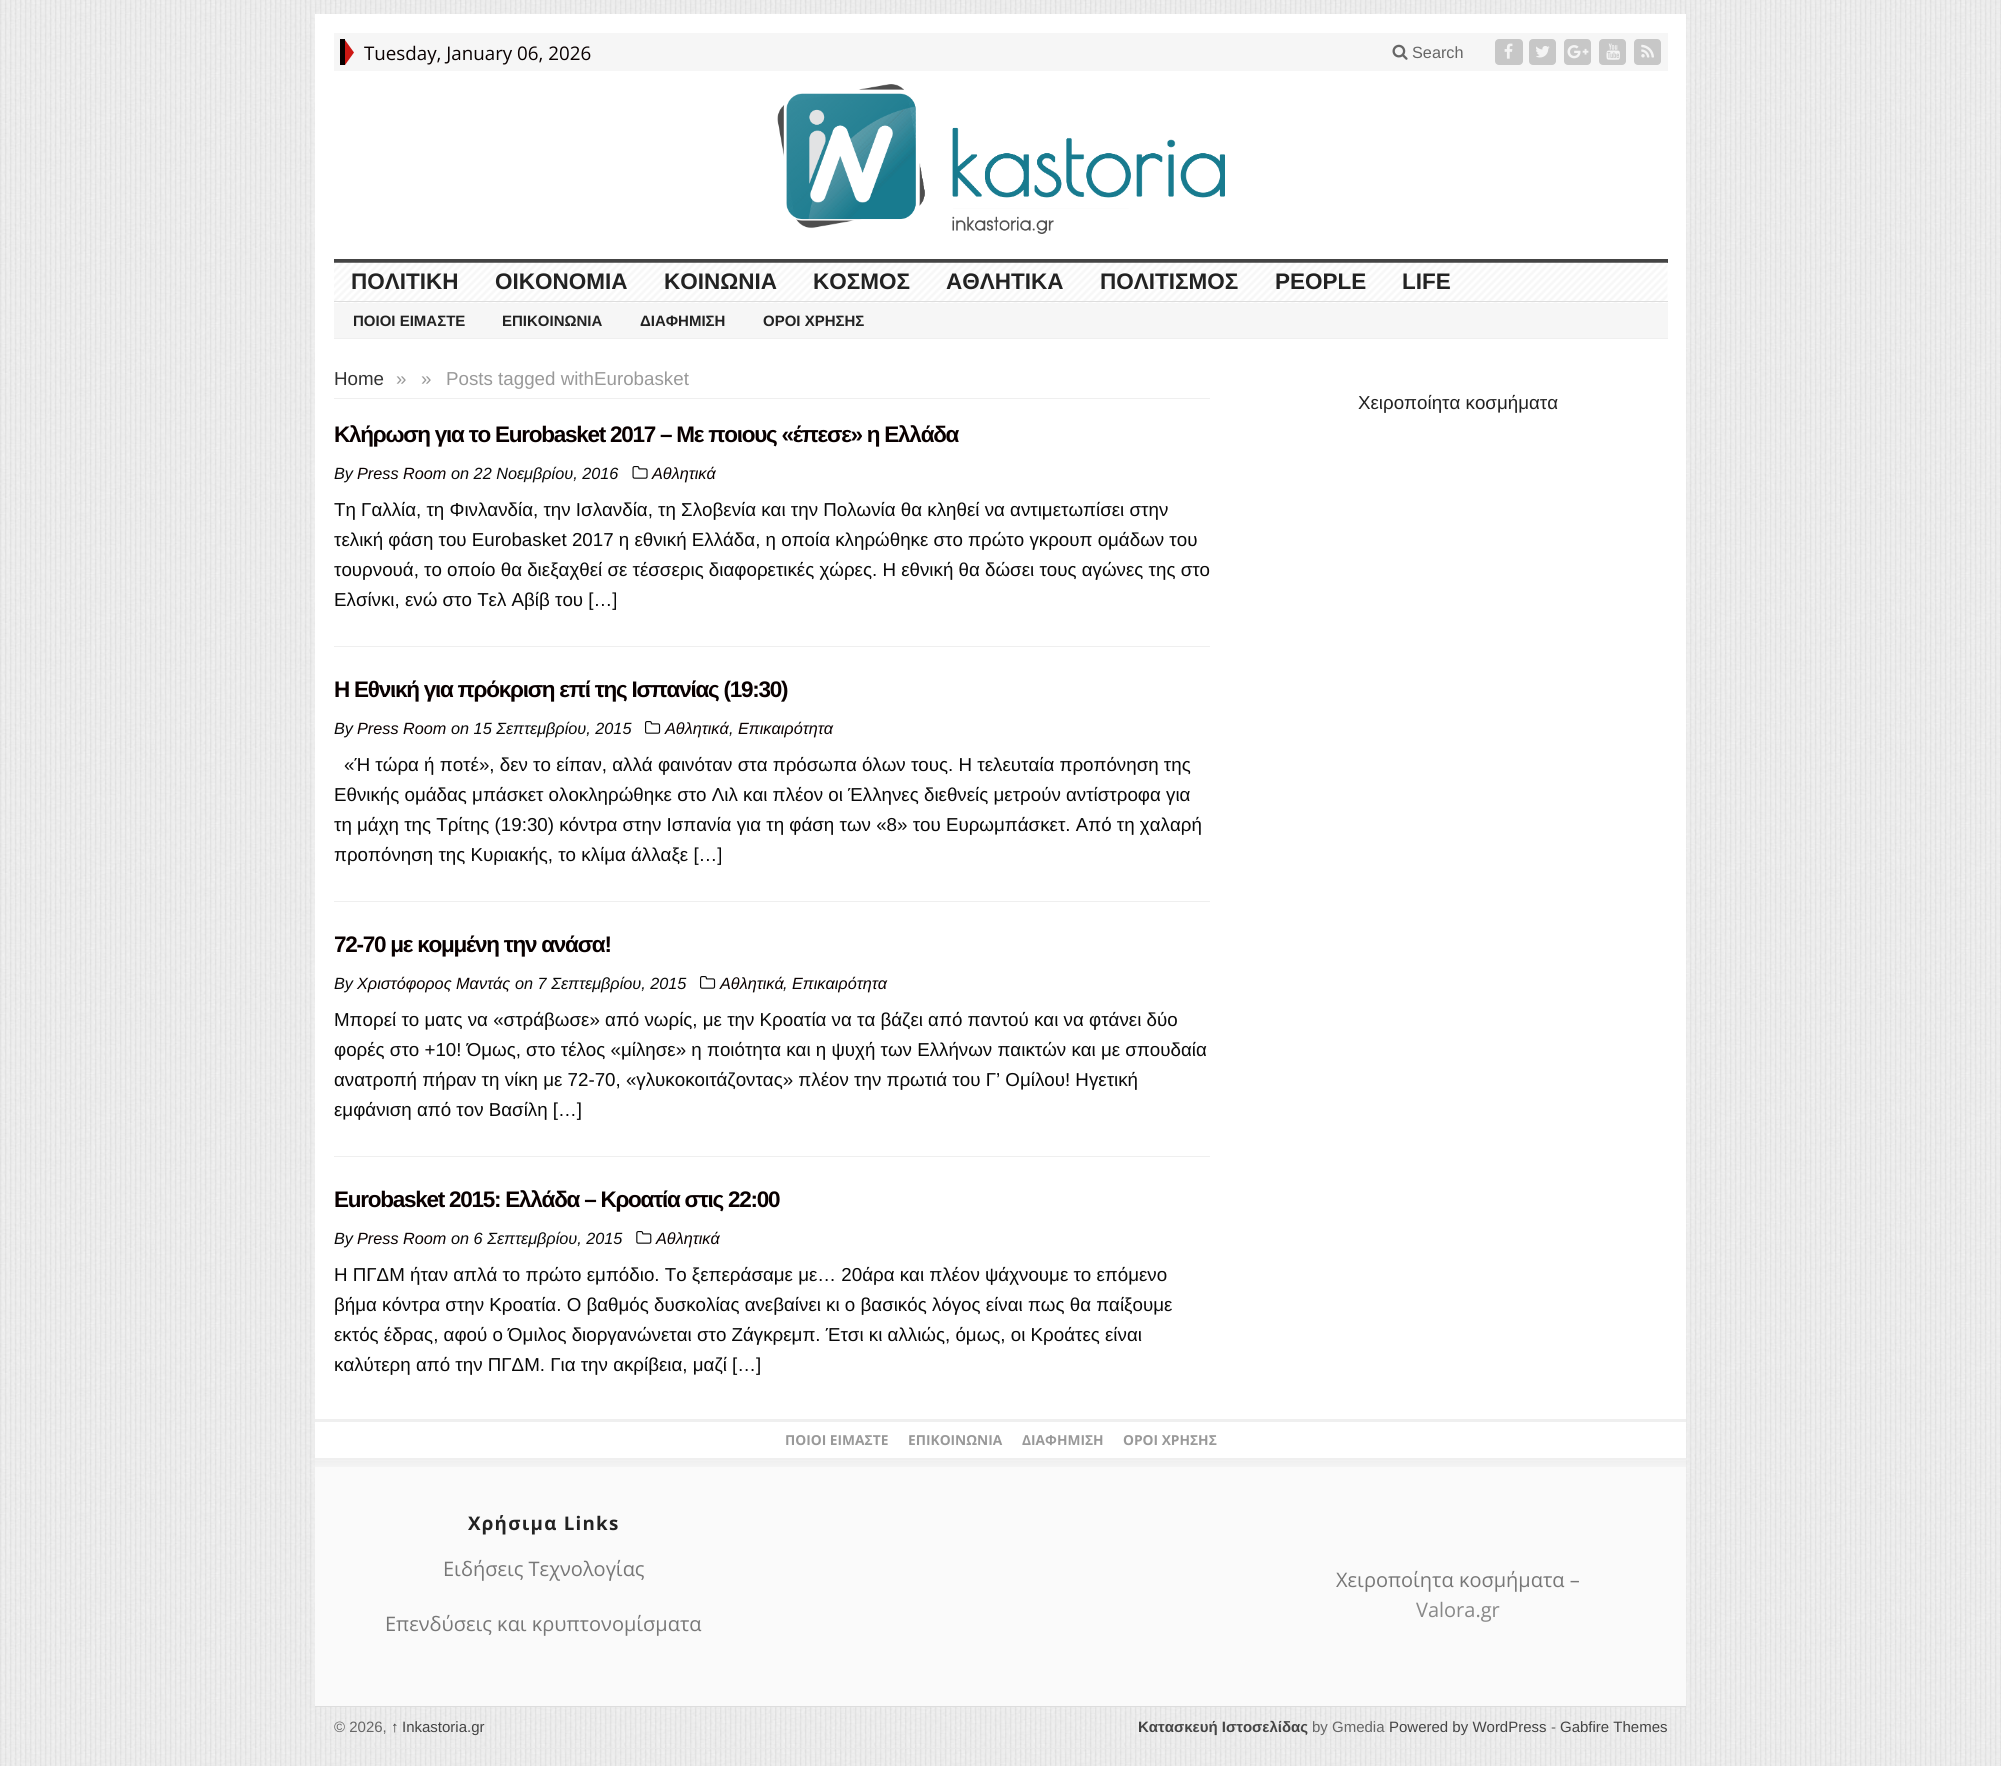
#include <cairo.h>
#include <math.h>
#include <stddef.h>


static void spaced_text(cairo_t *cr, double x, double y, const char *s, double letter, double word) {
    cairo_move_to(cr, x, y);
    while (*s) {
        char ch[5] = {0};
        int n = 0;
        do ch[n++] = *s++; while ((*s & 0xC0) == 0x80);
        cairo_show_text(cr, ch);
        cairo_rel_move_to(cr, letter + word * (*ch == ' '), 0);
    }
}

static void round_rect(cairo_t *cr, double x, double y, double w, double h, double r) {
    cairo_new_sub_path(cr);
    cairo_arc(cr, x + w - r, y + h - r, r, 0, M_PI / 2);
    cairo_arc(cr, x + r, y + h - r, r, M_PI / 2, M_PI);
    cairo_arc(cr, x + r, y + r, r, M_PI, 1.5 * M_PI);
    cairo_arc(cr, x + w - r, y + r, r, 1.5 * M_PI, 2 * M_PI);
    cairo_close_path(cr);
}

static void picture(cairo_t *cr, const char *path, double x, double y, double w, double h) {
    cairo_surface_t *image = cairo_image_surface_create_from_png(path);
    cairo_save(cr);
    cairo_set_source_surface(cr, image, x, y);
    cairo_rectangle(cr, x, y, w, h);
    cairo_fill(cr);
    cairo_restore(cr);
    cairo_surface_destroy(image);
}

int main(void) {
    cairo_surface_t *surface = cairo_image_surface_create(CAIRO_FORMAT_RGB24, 2001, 1766);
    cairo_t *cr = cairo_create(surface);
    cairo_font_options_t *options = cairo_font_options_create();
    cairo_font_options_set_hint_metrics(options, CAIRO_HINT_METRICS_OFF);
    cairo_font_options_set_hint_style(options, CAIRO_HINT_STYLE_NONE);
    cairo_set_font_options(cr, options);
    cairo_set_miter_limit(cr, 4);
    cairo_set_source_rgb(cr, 1, 1, 1);
    cairo_paint(cr);
    picture(cr, "img1.png", 0, 0, 2001, 1766);
    cairo_set_source_rgb(cr, 1, 1, 1);
    cairo_rectangle(cr, 315, 14, 1371, 1444);
    cairo_fill(cr);
    cairo_set_source_rgb(cr, 0.961, 0.961, 0.961);
    cairo_rectangle(cr, 334, 33, 1334, 38);
    cairo_fill(cr);
    cairo_set_source_rgb(cr, 0.039, 0, 0);
    cairo_rectangle(cr, 340, 39, 5, 26);
    cairo_fill(cr);
    cairo_set_source_rgb(cr, 0.804, 0.09, 0.075);
    cairo_new_path(cr);
    cairo_move_to(cr, 345, 65);
    cairo_line_to(cr, 345, 40);
    cairo_line_to(cr, 354, 52.5);
    cairo_close_path(cr);
    cairo_fill(cr);
    cairo_select_font_face(cr, "Open Sans", CAIRO_FONT_SLANT_NORMAL, CAIRO_FONT_WEIGHT_NORMAL);
    cairo_set_font_size(cr, 18.75);
    cairo_set_source_rgb(cr, 0.039, 0, 0);
    cairo_move_to(cr, 364, 60);
    cairo_show_text(cr, "Tuesday, January 06, 2026");
    picture(cr, "img2.png", 1392, 44, 16, 16);
    cairo_select_font_face(cr, "Liberation Sans", CAIRO_FONT_SLANT_NORMAL, CAIRO_FONT_WEIGHT_NORMAL);
    cairo_set_font_size(cr, 16.25);
    cairo_set_source_rgb(cr, 0.4, 0.4, 0.4);
    cairo_move_to(cr, 1412, 58);
    cairo_show_text(cr, "Search");
    cairo_set_source_rgb(cr, 0.78, 0.78, 0.78);
    round_rect(cr, 1495, 39, 28, 26, 4);
    cairo_fill(cr);
    picture(cr, "img3.png", 1504, 43, 9, 16);
    round_rect(cr, 1529, 39, 27, 26, 4);
    cairo_fill(cr);
    picture(cr, "img4.png", 1536, 46, 14, 12);
    round_rect(cr, 1564, 39, 27, 26, 4);
    cairo_fill(cr);
    picture(cr, "img5.png", 1567, 45, 22, 14);
    round_rect(cr, 1599, 39, 27, 26, 4);
    cairo_fill(cr);
    picture(cr, "img6.png", 1606, 43, 14, 17);
    round_rect(cr, 1634, 39, 27, 26, 4);
    cairo_fill(cr);
    picture(cr, "img7.png", 1641, 44, 13, 14);
    cairo_set_source_rgb(cr, 0.267, 0.267, 0.267);
    cairo_rectangle(cr, 334, 259, 1334, 4);
    cairo_fill(cr);
    picture(cr, "img8.png", 777, 84, 448, 150);
    picture(cr, "img9.png", 334, 262, 1334, 41);
    cairo_set_source_rgb(cr, 0.867, 0.867, 0.867);
    cairo_rectangle(cr, 334, 301, 1334, 1);
    cairo_fill(cr);
    cairo_select_font_face(cr, "Liberation Sans", CAIRO_FONT_SLANT_NORMAL, CAIRO_FONT_WEIGHT_BOLD);
    cairo_set_font_size(cr, 22.5);
    cairo_set_source_rgb(cr, 0.133, 0.133, 0.133);
    cairo_move_to(cr, 351, 289);
    cairo_show_text(cr, "ΠΟΛΙΤΙΚΗ");
    cairo_move_to(cr, 495, 289);
    cairo_show_text(cr, "ΟΙΚΟΝΟΜΙΑ");
    cairo_move_to(cr, 664, 289);
    cairo_show_text(cr, "ΚΟΙΝΩΝΙΑ");
    cairo_move_to(cr, 813, 289);
    cairo_show_text(cr, "ΚΟΣΜΟΣ");
    cairo_move_to(cr, 946, 289);
    cairo_show_text(cr, "ΑΘΛΗΤΙΚΑ");
    cairo_move_to(cr, 1100, 289);
    cairo_show_text(cr, "ΠΟΛΙΤΙΣΜΟΣ");
    cairo_move_to(cr, 1275, 289);
    cairo_show_text(cr, "PEOPLE");
    cairo_move_to(cr, 1402, 289);
    cairo_show_text(cr, "LIFE");
    cairo_set_source_rgb(cr, 0.961, 0.961, 0.961);
    cairo_rectangle(cr, 334, 303, 1334, 35);
    cairo_fill(cr);
    cairo_set_source_rgb(cr, 0.937, 0.937, 0.937);
    cairo_rectangle(cr, 334, 338, 1334, 1);
    cairo_fill(cr);
    cairo_set_font_size(cr, 15);
    cairo_set_source_rgb(cr, 0.133, 0.133, 0.133);
    cairo_move_to(cr, 353, 326);
    cairo_show_text(cr, "ΠΟΙΟΙ ΕΙΜΑΣΤΕ");
    cairo_move_to(cr, 502, 326);
    cairo_show_text(cr, "ΕΠΙΚΟΙΝΩΝΙΑ");
    cairo_move_to(cr, 640, 326);
    cairo_show_text(cr, "ΔΙΑΦΗΜΙΣΗ");
    cairo_move_to(cr, 763, 326);
    cairo_show_text(cr, "ΟΡΟΙ ΧΡΗΣΗΣ");
    cairo_set_source_rgb(cr, 0.937, 0.937, 0.937);
    cairo_rectangle(cr, 334, 398, 876, 1);
    cairo_fill(cr);
    cairo_select_font_face(cr, "Liberation Sans", CAIRO_FONT_SLANT_NORMAL, CAIRO_FONT_WEIGHT_NORMAL);
    cairo_set_font_size(cr, 18.75);
    cairo_set_source_rgb(cr, 0.2, 0.2, 0.2);
    cairo_move_to(cr, 334, 385);
    cairo_show_text(cr, "Home");
    cairo_set_source_rgb(cr, 0.6, 0.6, 0.6);
    cairo_move_to(cr, 396, 385);
    cairo_show_text(cr, "»");
    cairo_move_to(cr, 421, 385);
    cairo_show_text(cr, "»");
    cairo_move_to(cr, 446, 385);
    cairo_show_text(cr, "Posts tagged withEurobasket");
    cairo_set_source_rgb(cr, 0.937, 0.937, 0.937);
    cairo_rectangle(cr, 334, 646, 876, 1);
    cairo_fill(cr);
    cairo_select_font_face(cr, "Liberation Sans", CAIRO_FONT_SLANT_NORMAL, CAIRO_FONT_WEIGHT_BOLD);
    cairo_set_font_size(cr, 22.5);
    cairo_set_source_rgb(cr, 0.039, 0, 0);
    spaced_text(cr, 334, 442, "Κλήρωση για το Eurobasket 2017 – Mε ποιους «έπεσε» η Ελλάδα", -1.25, 0);
    cairo_select_font_face(cr, "Liberation Sans", CAIRO_FONT_SLANT_ITALIC, CAIRO_FONT_WEIGHT_NORMAL);
    cairo_set_font_size(cr, 16.25);
    cairo_set_source_rgb(cr, 0.039, 0.039, 0.039);
    cairo_move_to(cr, 334, 479);
    cairo_show_text(cr, "By");
    cairo_set_source_rgb(cr, 0.039, 0, 0);
    cairo_move_to(cr, 357, 479);
    cairo_show_text(cr, "Press Room");
    cairo_set_source_rgb(cr, 0.039, 0.039, 0.039);
    cairo_move_to(cr, 451, 479);
    cairo_show_text(cr, "on 22 Νοεμβρίου, 2016");
    picture(cr, "img10.png", 632, 466, 16, 13);
    cairo_set_source_rgb(cr, 0.039, 0, 0);
    cairo_move_to(cr, 652, 479);
    cairo_show_text(cr, "Αθλητικά");
    cairo_select_font_face(cr, "Liberation Sans", CAIRO_FONT_SLANT_NORMAL, CAIRO_FONT_WEIGHT_NORMAL);
    cairo_set_font_size(cr, 18.75);
    cairo_set_source_rgb(cr, 0.039, 0.039, 0.039);
    cairo_move_to(cr, 334, 516);
    cairo_show_text(cr, "Τη Γαλλία, τη Φινλανδία, την Ισλανδία, τη Σλοβενία και την Πολωνία θα κληθεί να αντιμετωπίσει στην");
    cairo_move_to(cr, 334, 546);
    cairo_show_text(cr, "τελική φάση του Eurobasket 2017 η εθνική Ελλάδα, η οποία κληρώθηκε στο πρώτο γκρουπ ομάδων του");
    cairo_move_to(cr, 334, 576);
    cairo_show_text(cr, "τουρνουά, το οποίο θα διεξαχθεί σε τέσσερις διαφορετικές χώρες. Η εθνική θα δώσει τους αγώνες της στο");
    cairo_move_to(cr, 334, 606);
    cairo_show_text(cr, "Ελσίνκι, ενώ στο Τελ Αβίβ του […]");
    cairo_set_source_rgb(cr, 0.937, 0.937, 0.937);
    cairo_rectangle(cr, 334, 901, 876, 1);
    cairo_fill(cr);
    cairo_select_font_face(cr, "Liberation Sans", CAIRO_FONT_SLANT_NORMAL, CAIRO_FONT_WEIGHT_BOLD);
    cairo_set_font_size(cr, 22.5);
    cairo_set_source_rgb(cr, 0.039, 0, 0);
    spaced_text(cr, 334, 697, "Η Εθνική για πρόκριση επί της Ισπανίας (19:30)", -1.25, 0);
    cairo_select_font_face(cr, "Liberation Sans", CAIRO_FONT_SLANT_ITALIC, CAIRO_FONT_WEIGHT_NORMAL);
    cairo_set_font_size(cr, 16.25);
    cairo_set_source_rgb(cr, 0.039, 0.039, 0.039);
    cairo_move_to(cr, 334, 734);
    cairo_show_text(cr, "By");
    cairo_set_source_rgb(cr, 0.039, 0, 0);
    cairo_move_to(cr, 357, 734);
    cairo_show_text(cr, "Press Room");
    cairo_set_source_rgb(cr, 0.039, 0.039, 0.039);
    cairo_move_to(cr, 451, 734);
    cairo_show_text(cr, "on 15 Σεπτεμβρίου, 2015");
    picture(cr, "img11.png", 645, 721, 16, 13);
    cairo_set_source_rgb(cr, 0.039, 0, 0);
    cairo_move_to(cr, 665, 734);
    cairo_show_text(cr, "Αθλητικά");
    cairo_set_source_rgb(cr, 0.039, 0.039, 0.039);
    cairo_move_to(cr, 729, 734);
    cairo_show_text(cr, ",");
    cairo_set_source_rgb(cr, 0.039, 0, 0);
    cairo_move_to(cr, 738, 734);
    cairo_show_text(cr, "Επικαιρότητα");
    cairo_select_font_face(cr, "Liberation Sans", CAIRO_FONT_SLANT_NORMAL, CAIRO_FONT_WEIGHT_NORMAL);
    cairo_set_font_size(cr, 18.75);
    cairo_set_source_rgb(cr, 0.039, 0.039, 0.039);
    cairo_move_to(cr, 344, 771);
    cairo_show_text(cr, "«Ή τώρα ή ποτέ», δεν το είπαν, αλλά φαινόταν στα πρόσωπα όλων τους. Η τελευταία προπόνηση της");
    cairo_move_to(cr, 334, 801);
    cairo_show_text(cr, "Εθνικής ομάδας μπάσκετ ολοκληρώθηκε στο Λιλ και πλέον οι Έλληνες διεθνείς μετρούν αντίστροφα για");
    cairo_move_to(cr, 334, 831);
    cairo_show_text(cr, "τη μάχη της Τρίτης (19:30) κόντρα στην Ισπανία για τη φάση των «8» του Ευρωμπάσκετ. Από τη χαλαρή");
    cairo_move_to(cr, 334, 861);
    cairo_show_text(cr, "προπόνηση της Κυριακής, το κλίμα άλλαξε […]");
    cairo_set_source_rgb(cr, 0.937, 0.937, 0.937);
    cairo_rectangle(cr, 334, 1156, 876, 1);
    cairo_fill(cr);
    cairo_select_font_face(cr, "Liberation Sans", CAIRO_FONT_SLANT_NORMAL, CAIRO_FONT_WEIGHT_BOLD);
    cairo_set_font_size(cr, 22.5);
    cairo_set_source_rgb(cr, 0.039, 0, 0);
    spaced_text(cr, 334, 952, "72-70 με κομμένη την ανάσα!", -1.25, 0);
    cairo_select_font_face(cr, "Liberation Sans", CAIRO_FONT_SLANT_ITALIC, CAIRO_FONT_WEIGHT_NORMAL);
    cairo_set_font_size(cr, 16.25);
    cairo_set_source_rgb(cr, 0.039, 0.039, 0.039);
    cairo_move_to(cr, 334, 989);
    cairo_show_text(cr, "By");
    cairo_set_source_rgb(cr, 0.039, 0, 0);
    cairo_move_to(cr, 357, 989);
    cairo_show_text(cr, "Χριστόφορος Μαντάς");
    cairo_set_source_rgb(cr, 0.039, 0.039, 0.039);
    cairo_move_to(cr, 515, 989);
    cairo_show_text(cr, "on 7 Σεπτεμβρίου, 2015");
    picture(cr, "img11.png", 700, 976, 16, 13);
    cairo_set_source_rgb(cr, 0.039, 0, 0);
    cairo_move_to(cr, 720, 989);
    cairo_show_text(cr, "Αθλητικά");
    cairo_set_source_rgb(cr, 0.039, 0.039, 0.039);
    cairo_move_to(cr, 783, 989);
    cairo_show_text(cr, ",");
    cairo_set_source_rgb(cr, 0.039, 0, 0);
    cairo_move_to(cr, 792, 989);
    cairo_show_text(cr, "Επικαιρότητα");
    cairo_select_font_face(cr, "Liberation Sans", CAIRO_FONT_SLANT_NORMAL, CAIRO_FONT_WEIGHT_NORMAL);
    cairo_set_font_size(cr, 18.75);
    cairo_set_source_rgb(cr, 0.039, 0.039, 0.039);
    cairo_move_to(cr, 334, 1026);
    cairo_show_text(cr, "Μπορεί το ματς να «στράβωσε» από νωρίς, με την Κροατία να τα βάζει από παντού και να φτάνει δύο");
    cairo_move_to(cr, 334, 1056);
    cairo_show_text(cr, "φορές στο +10! Όμως, στο τέλος «μίλησε» η ποιότητα και η ψυχή των Ελλήνων παικτών και με σπουδαία");
    cairo_move_to(cr, 334, 1086);
    cairo_show_text(cr, "ανατροπή πήραν τη νίκη με 72-70, «γλυκοκοιτάζοντας» πλέον την πρωτιά του Γ’ Ομίλου! Ηγετική");
    cairo_move_to(cr, 334, 1116);
    cairo_show_text(cr, "εμφάνιση από τον Βασίλη […]");
    cairo_select_font_face(cr, "Liberation Sans", CAIRO_FONT_SLANT_NORMAL, CAIRO_FONT_WEIGHT_BOLD);
    cairo_set_font_size(cr, 22.5);
    cairo_set_source_rgb(cr, 0.039, 0, 0);
    spaced_text(cr, 334, 1207, "Eurobasket 2015: Ελλάδα – Κροατία στις 22:00", -1.25, 0);
    cairo_select_font_face(cr, "Liberation Sans", CAIRO_FONT_SLANT_ITALIC, CAIRO_FONT_WEIGHT_NORMAL);
    cairo_set_font_size(cr, 16.25);
    cairo_set_source_rgb(cr, 0.039, 0.039, 0.039);
    cairo_move_to(cr, 334, 1244);
    cairo_show_text(cr, "By");
    cairo_set_source_rgb(cr, 0.039, 0, 0);
    cairo_move_to(cr, 357, 1244);
    cairo_show_text(cr, "Press Room");
    cairo_set_source_rgb(cr, 0.039, 0.039, 0.039);
    cairo_move_to(cr, 451, 1244);
    cairo_show_text(cr, "on 6 Σεπτεμβρίου, 2015");
    picture(cr, "img12.png", 636, 1231, 16, 13);
    cairo_set_source_rgb(cr, 0.039, 0, 0);
    cairo_move_to(cr, 656, 1244);
    cairo_show_text(cr, "Αθλητικά");
    cairo_select_font_face(cr, "Liberation Sans", CAIRO_FONT_SLANT_NORMAL, CAIRO_FONT_WEIGHT_NORMAL);
    cairo_set_font_size(cr, 18.75);
    cairo_set_source_rgb(cr, 0.039, 0.039, 0.039);
    cairo_move_to(cr, 334, 1281);
    cairo_show_text(cr, "Η ΠΓΔΜ ήταν απλά το πρώτο εμπόδιο. Το ξεπεράσαμε με… 20άρα και πλέον ψάχνουμε το επόμενο");
    cairo_move_to(cr, 334, 1311);
    cairo_show_text(cr, "βήμα κόντρα στην Κροατία. Ο βαθμός δυσκολίας ανεβαίνει κι ο βασικός λόγος είναι πως θα παίξουμε");
    cairo_move_to(cr, 334, 1341);
    cairo_show_text(cr, "εκτός έδρας, αφού ο Όμιλος διοργανώνεται στο Ζάγκρεμπ. Έτσι κι αλλιώς, όμως, οι Κροάτες είναι");
    cairo_move_to(cr, 334, 1371);
    cairo_show_text(cr, "καλύτερη από την ΠΓΔΜ. Για την ακρίβεια, μαζί […]");
    cairo_set_source_rgb(cr, 0.133, 0.133, 0.133);
    cairo_move_to(cr, 1358, 409);
    cairo_show_text(cr, "Χειροποίητα κοσμήματα");
    cairo_set_source_rgb(cr, 0.937, 0.937, 0.937);
    cairo_rectangle(cr, 315, 1419, 1371, 3);
    cairo_fill(cr);
    cairo_rectangle(cr, 315, 1458, 1371, 2);
    cairo_fill(cr);
    cairo_select_font_face(cr, "Open Sans", CAIRO_FONT_SLANT_NORMAL, CAIRO_FONT_WEIGHT_BOLD);
    cairo_set_font_size(cr, 13.75);
    cairo_set_source_rgb(cr, 0.6, 0.6, 0.6);
    cairo_move_to(cr, 785, 1445);
    cairo_show_text(cr, "ΠΟΙΟΙ ΕΙΜΑΣΤΕ");
    cairo_move_to(cr, 908, 1445);
    cairo_show_text(cr, "ΕΠΙΚΟΙΝΩΝΙΑ");
    cairo_move_to(cr, 1022, 1445);
    cairo_show_text(cr, "ΔΙΑΦΗΜΙΣΗ");
    cairo_move_to(cr, 1123, 1445);
    cairo_show_text(cr, "ΟΡΟΙ ΧΡΗΣΗΣ");
    cairo_set_source_rgb(cr, 0.98, 0.98, 0.98);
    cairo_rectangle(cr, 315, 1460, 1371, 246);
    cairo_fill(cr);
    picture(cr, "img13.png", 315, 1460, 1371, 7);
    cairo_set_font_size(cr, 18.75);
    cairo_set_source_rgb(cr, 0.133, 0.133, 0.133);
    spaced_text(cr, 468, 1530, "Χρήσιμα Links", 1.25, 0);
    cairo_select_font_face(cr, "Open Sans", CAIRO_FONT_SLANT_NORMAL, CAIRO_FONT_WEIGHT_NORMAL);
    cairo_set_font_size(cr, 20);
    cairo_set_source_rgb(cr, 0.467, 0.467, 0.467);
    cairo_move_to(cr, 443, 1576);
    cairo_show_text(cr, "Ειδήσεις Τεχνολογίας");
    cairo_move_to(cr, 385, 1631);
    cairo_show_text(cr, "Επενδύσεις και κρυπτονομίσματα");
    cairo_move_to(cr, 1336, 1587);
    cairo_show_text(cr, "Χειροποίητα κοσμήματα –");
    cairo_set_source_rgb(cr, 0.533, 0.533, 0.533);
    cairo_move_to(cr, 1416, 1617);
    cairo_show_text(cr, "Valora.gr");
    picture(cr, "img14.png", 315, 1707, 1371, 42);
    cairo_set_source_rgb(cr, 0.867, 0.867, 0.867);
    cairo_rectangle(cr, 315, 1706, 1371, 1);
    cairo_fill(cr);
    cairo_set_source_rgb(cr, 0.91, 0.91, 0.91);
    cairo_rectangle(cr, 334, 1748, 1334, 1);
    cairo_fill(cr);
    cairo_select_font_face(cr, "Liberation Sans", CAIRO_FONT_SLANT_NORMAL, CAIRO_FONT_WEIGHT_NORMAL);
    cairo_set_font_size(cr, 15);
    cairo_set_source_rgb(cr, 0.4, 0.4, 0.4);
    cairo_move_to(cr, 334, 1732);
    cairo_show_text(cr, "© 2026,");
    cairo_select_font_face(cr, "Liberation Sans", CAIRO_FONT_SLANT_NORMAL, CAIRO_FONT_WEIGHT_BOLD);
    cairo_set_source_rgb(cr, 0.267, 0.267, 0.267);
    cairo_move_to(cr, 391, 1732);
    cairo_show_text(cr, "↑");
    cairo_select_font_face(cr, "Liberation Sans", CAIRO_FONT_SLANT_NORMAL, CAIRO_FONT_WEIGHT_NORMAL);
    cairo_move_to(cr, 402, 1732);
    cairo_show_text(cr, "Ιnkastoria.gr");
    cairo_select_font_face(cr, "Liberation Sans", CAIRO_FONT_SLANT_NORMAL, CAIRO_FONT_WEIGHT_BOLD);
    cairo_move_to(cr, 1138, 1732);
    cairo_show_text(cr, "Κατασκευή Ιστοσελίδας");
    cairo_select_font_face(cr, "Liberation Sans", CAIRO_FONT_SLANT_NORMAL, CAIRO_FONT_WEIGHT_NORMAL);
    cairo_set_source_rgb(cr, 0.4, 0.4, 0.4);
    cairo_move_to(cr, 1312, 1732);
    cairo_show_text(cr, "by Gmedia");
    cairo_set_source_rgb(cr, 0.267, 0.267, 0.267);
    cairo_move_to(cr, 1389, 1732);
    cairo_show_text(cr, "Powered by WordPress");
    cairo_set_source_rgb(cr, 0.4, 0.4, 0.4);
    cairo_move_to(cr, 1551, 1732);
    cairo_show_text(cr, "-");
    cairo_set_source_rgb(cr, 0.267, 0.267, 0.267);
    cairo_move_to(cr, 1560, 1732);
    cairo_show_text(cr, "Gabfire Themes");
    cairo_surface_write_to_png(surface, "page.png");
    cairo_font_options_destroy(options);
    cairo_destroy(cr);
    cairo_surface_destroy(surface);
    return 0;
}
